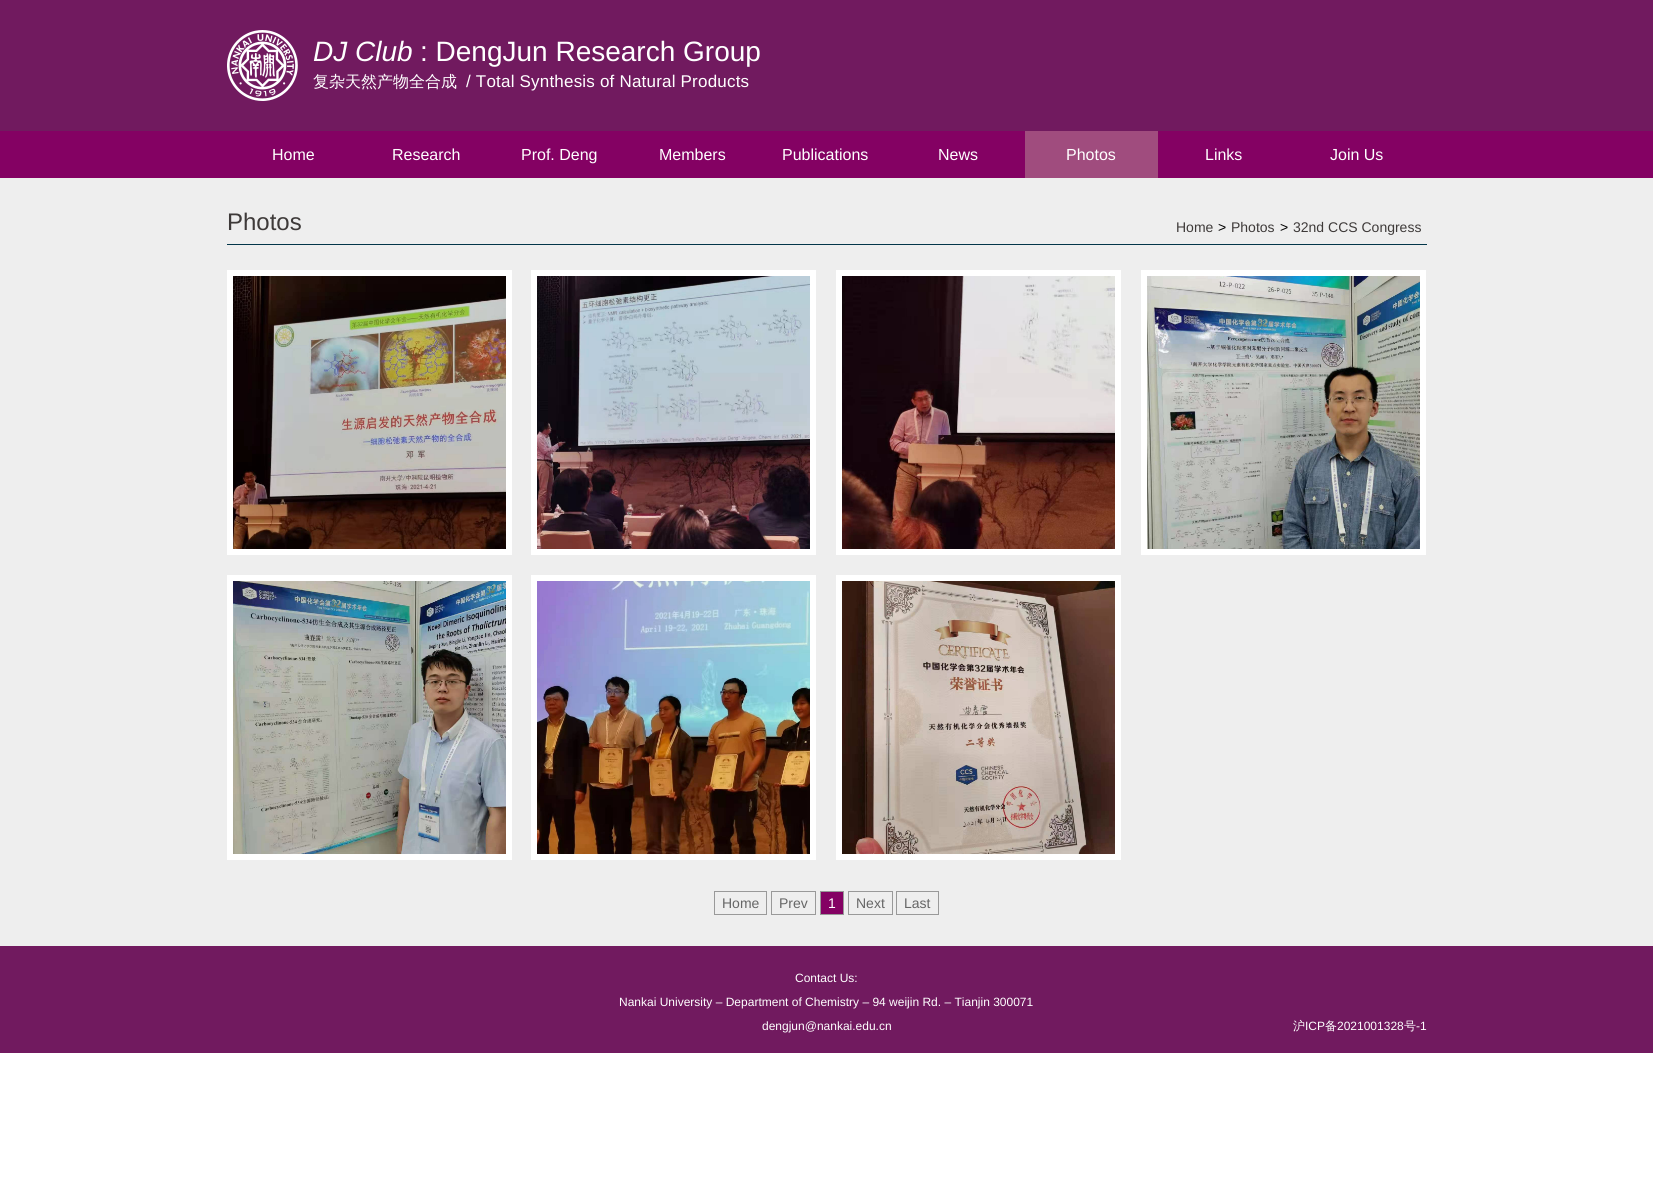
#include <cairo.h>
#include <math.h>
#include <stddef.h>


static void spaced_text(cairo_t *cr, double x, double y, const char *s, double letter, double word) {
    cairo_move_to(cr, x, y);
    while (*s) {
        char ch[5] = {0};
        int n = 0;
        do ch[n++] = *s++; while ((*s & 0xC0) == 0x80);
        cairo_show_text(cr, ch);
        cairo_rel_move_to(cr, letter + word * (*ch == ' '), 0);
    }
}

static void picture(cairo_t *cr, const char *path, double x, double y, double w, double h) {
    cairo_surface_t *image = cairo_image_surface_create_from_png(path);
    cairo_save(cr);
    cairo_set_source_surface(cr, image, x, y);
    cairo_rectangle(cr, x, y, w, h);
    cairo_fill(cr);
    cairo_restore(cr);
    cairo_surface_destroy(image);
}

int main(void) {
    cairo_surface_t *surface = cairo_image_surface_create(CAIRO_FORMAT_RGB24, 1653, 1190);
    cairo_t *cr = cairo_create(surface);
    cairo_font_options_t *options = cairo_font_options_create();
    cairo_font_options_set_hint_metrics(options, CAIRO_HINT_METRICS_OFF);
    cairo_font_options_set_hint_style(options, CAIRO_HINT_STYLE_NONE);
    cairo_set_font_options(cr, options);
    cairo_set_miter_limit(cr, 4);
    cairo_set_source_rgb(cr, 1, 1, 1);
    cairo_paint(cr);
    cairo_set_source_rgb(cr, 0.933, 0.933, 0.933);
    cairo_rectangle(cr, 0, 178, 1653, 768);
    cairo_fill(cr);
    cairo_set_source_rgb(cr, 0.443, 0.102, 0.373);
    cairo_rectangle(cr, 0, 0, 1653, 131);
    cairo_fill(cr);
    picture(cr, "img1.png", 227, 30, 71, 71);
    cairo_select_font_face(cr, "Liberation Sans", CAIRO_FONT_SLANT_ITALIC, CAIRO_FONT_WEIGHT_NORMAL);
    cairo_set_font_size(cr, 28);
    cairo_set_source_rgb(cr, 1, 1, 1);
    cairo_move_to(cr, 313, 61);
    cairo_show_text(cr, "DJ Club");
    cairo_select_font_face(cr, "Liberation Sans", CAIRO_FONT_SLANT_NORMAL, CAIRO_FONT_WEIGHT_NORMAL);
    cairo_move_to(cr, 420, 61);
    cairo_show_text(cr, ": DengJun Research Group");
    cairo_select_font_face(cr, "WenQuanYi Zen Hei Medium", CAIRO_FONT_SLANT_NORMAL, CAIRO_FONT_WEIGHT_NORMAL);
    cairo_set_font_size(cr, 16);
    cairo_move_to(cr, 313, 87);
    cairo_show_text(cr, "复杂天然产物全合成");
    cairo_select_font_face(cr, "Liberation Sans", CAIRO_FONT_SLANT_NORMAL, CAIRO_FONT_WEIGHT_NORMAL);
    cairo_set_font_size(cr, 17);
    spaced_text(cr, 466, 87, "/ Total Synthesis of Natural Products", 0.2, 0);
    cairo_set_source_rgb(cr, 0.518, 0.004, 0.388);
    cairo_rectangle(cr, 0, 131, 1653, 47);
    cairo_fill(cr);
    cairo_set_font_size(cr, 16);
    cairo_set_source_rgb(cr, 1, 1, 1);
    cairo_move_to(cr, 272, 160);
    cairo_show_text(cr, "Home");
    cairo_move_to(cr, 392, 160);
    cairo_show_text(cr, "Research");
    cairo_move_to(cr, 521, 160);
    cairo_show_text(cr, "Prof. Deng");
    cairo_move_to(cr, 659, 160);
    cairo_show_text(cr, "Members");
    cairo_move_to(cr, 782, 160);
    cairo_show_text(cr, "Publications");
    cairo_move_to(cr, 938, 160);
    cairo_show_text(cr, "News");
    cairo_set_source_rgb(cr, 0.627, 0.298, 0.494);
    cairo_rectangle(cr, 1025, 131, 133, 47);
    cairo_fill(cr);
    cairo_set_source_rgb(cr, 1, 1, 1);
    cairo_move_to(cr, 1066, 160);
    cairo_show_text(cr, "Photos");
    cairo_move_to(cr, 1205, 160);
    cairo_show_text(cr, "Links");
    cairo_move_to(cr, 1330, 160);
    cairo_show_text(cr, "Join Us");
    cairo_set_source_rgb(cr, 0.012, 0.212, 0.286);
    cairo_rectangle(cr, 227, 244, 1200, 1);
    cairo_fill(cr);
    cairo_set_font_size(cr, 24);
    cairo_set_source_rgb(cr, 0.243, 0.227, 0.224);
    cairo_move_to(cr, 227, 230);
    cairo_show_text(cr, "Photos");
    cairo_set_font_size(cr, 14);
    cairo_move_to(cr, 1176, 232);
    cairo_show_text(cr, "Home");
    cairo_set_source_rgb(cr, 0, 0, 0);
    cairo_move_to(cr, 1218, 232);
    cairo_show_text(cr, ">");
    cairo_set_source_rgb(cr, 0.243, 0.227, 0.224);
    cairo_move_to(cr, 1231, 232);
    cairo_show_text(cr, "Photos");
    cairo_set_source_rgb(cr, 0, 0, 0);
    cairo_move_to(cr, 1280, 232);
    cairo_show_text(cr, ">");
    cairo_set_source_rgb(cr, 0.243, 0.227, 0.224);
    cairo_move_to(cr, 1293, 232);
    cairo_show_text(cr, "32nd CCS Congress");
    cairo_set_source_rgb(cr, 1, 1, 1);
    cairo_rectangle(cr, 227, 270, 285, 285);
    cairo_fill(cr);
    picture(cr, "img2.png", 233, 276, 273, 273);
    cairo_rectangle(cr, 531, 270, 285, 285);
    cairo_fill(cr);
    picture(cr, "img3.png", 537, 276, 273, 273);
    cairo_rectangle(cr, 836, 270, 285, 285);
    cairo_fill(cr);
    picture(cr, "img4.png", 842, 276, 273, 273);
    cairo_rectangle(cr, 1141, 270, 285, 285);
    cairo_fill(cr);
    picture(cr, "img5.png", 1147, 276, 273, 273);
    cairo_rectangle(cr, 227, 575, 285, 285);
    cairo_fill(cr);
    picture(cr, "img6.png", 233, 581, 273, 273);
    cairo_rectangle(cr, 531, 575, 285, 285);
    cairo_fill(cr);
    picture(cr, "img7.png", 537, 581, 273, 273);
    cairo_rectangle(cr, 836, 575, 285, 285);
    cairo_fill(cr);
    picture(cr, "img8.png", 842, 581, 273, 273);
    cairo_rectangle(cr, 714.5, 891.5, 52, 23);
    cairo_set_source_rgb(cr, 0.6, 0.6, 0.6);
    cairo_set_line_width(cr, 1);
    cairo_stroke(cr);
    cairo_set_source_rgb(cr, 0.4, 0.4, 0.4);
    cairo_move_to(cr, 722, 908);
    cairo_show_text(cr, "Home");
    cairo_rectangle(cr, 771.5, 891.5, 44, 23);
    cairo_set_source_rgb(cr, 0.6, 0.6, 0.6);
    cairo_stroke(cr);
    cairo_set_source_rgb(cr, 0.4, 0.4, 0.4);
    cairo_move_to(cr, 779, 908);
    cairo_show_text(cr, "Prev");
    cairo_set_source_rgb(cr, 0.518, 0.004, 0.388);
    cairo_rectangle(cr, 820.5, 891.5, 23, 23);
    cairo_fill_preserve(cr);
    cairo_set_source_rgb(cr, 0.6, 0.6, 0.6);
    cairo_stroke(cr);
    cairo_set_source_rgb(cr, 1, 1, 1);
    cairo_move_to(cr, 828, 908);
    cairo_show_text(cr, "1");
    cairo_rectangle(cr, 848.5, 891.5, 44, 23);
    cairo_set_source_rgb(cr, 0.6, 0.6, 0.6);
    cairo_stroke(cr);
    cairo_set_source_rgb(cr, 0.4, 0.4, 0.4);
    cairo_move_to(cr, 856, 908);
    cairo_show_text(cr, "Next");
    cairo_rectangle(cr, 896.5, 891.5, 42, 23);
    cairo_set_source_rgb(cr, 0.6, 0.6, 0.6);
    cairo_stroke(cr);
    cairo_set_source_rgb(cr, 0.4, 0.4, 0.4);
    cairo_move_to(cr, 904, 908);
    cairo_show_text(cr, "Last");
    cairo_set_source_rgb(cr, 0.443, 0.102, 0.373);
    cairo_rectangle(cr, 0, 946, 1653, 107);
    cairo_fill(cr);
    cairo_set_font_size(cr, 12);
    cairo_set_source_rgb(cr, 1, 1, 1);
    cairo_move_to(cr, 795, 982);
    cairo_show_text(cr, "Contact Us:");
    cairo_move_to(cr, 619, 1006);
    cairo_show_text(cr, "Nankai University – Department of Chemistry – 94 weijin Rd. – Tianjin 300071");
    cairo_move_to(cr, 762, 1030);
    cairo_show_text(cr, "dengjun@nankai.edu.cn");
    cairo_select_font_face(cr, "WenQuanYi Zen Hei Medium", CAIRO_FONT_SLANT_NORMAL, CAIRO_FONT_WEIGHT_NORMAL);
    cairo_move_to(cr, 1293, 1030);
    cairo_show_text(cr, "沪");
    cairo_select_font_face(cr, "Liberation Sans", CAIRO_FONT_SLANT_NORMAL, CAIRO_FONT_WEIGHT_NORMAL);
    cairo_move_to(cr, 1305, 1030);
    cairo_show_text(cr, "ICP");
    cairo_select_font_face(cr, "WenQuanYi Zen Hei Medium", CAIRO_FONT_SLANT_NORMAL, CAIRO_FONT_WEIGHT_NORMAL);
    cairo_move_to(cr, 1325, 1030);
    cairo_show_text(cr, "备");
    cairo_select_font_face(cr, "Liberation Sans", CAIRO_FONT_SLANT_NORMAL, CAIRO_FONT_WEIGHT_NORMAL);
    cairo_move_to(cr, 1337, 1030);
    cairo_show_text(cr, "2021001328");
    cairo_select_font_face(cr, "WenQuanYi Zen Hei Medium", CAIRO_FONT_SLANT_NORMAL, CAIRO_FONT_WEIGHT_NORMAL);
    cairo_move_to(cr, 1404, 1030);
    cairo_show_text(cr, "号");
    cairo_select_font_face(cr, "Liberation Sans", CAIRO_FONT_SLANT_NORMAL, CAIRO_FONT_WEIGHT_NORMAL);
    cairo_move_to(cr, 1416, 1030);
    cairo_show_text(cr, "-1");
    cairo_surface_write_to_png(surface, "page.png");
    cairo_font_options_destroy(options);
    cairo_destroy(cr);
    cairo_surface_destroy(surface);
    return 0;
}
